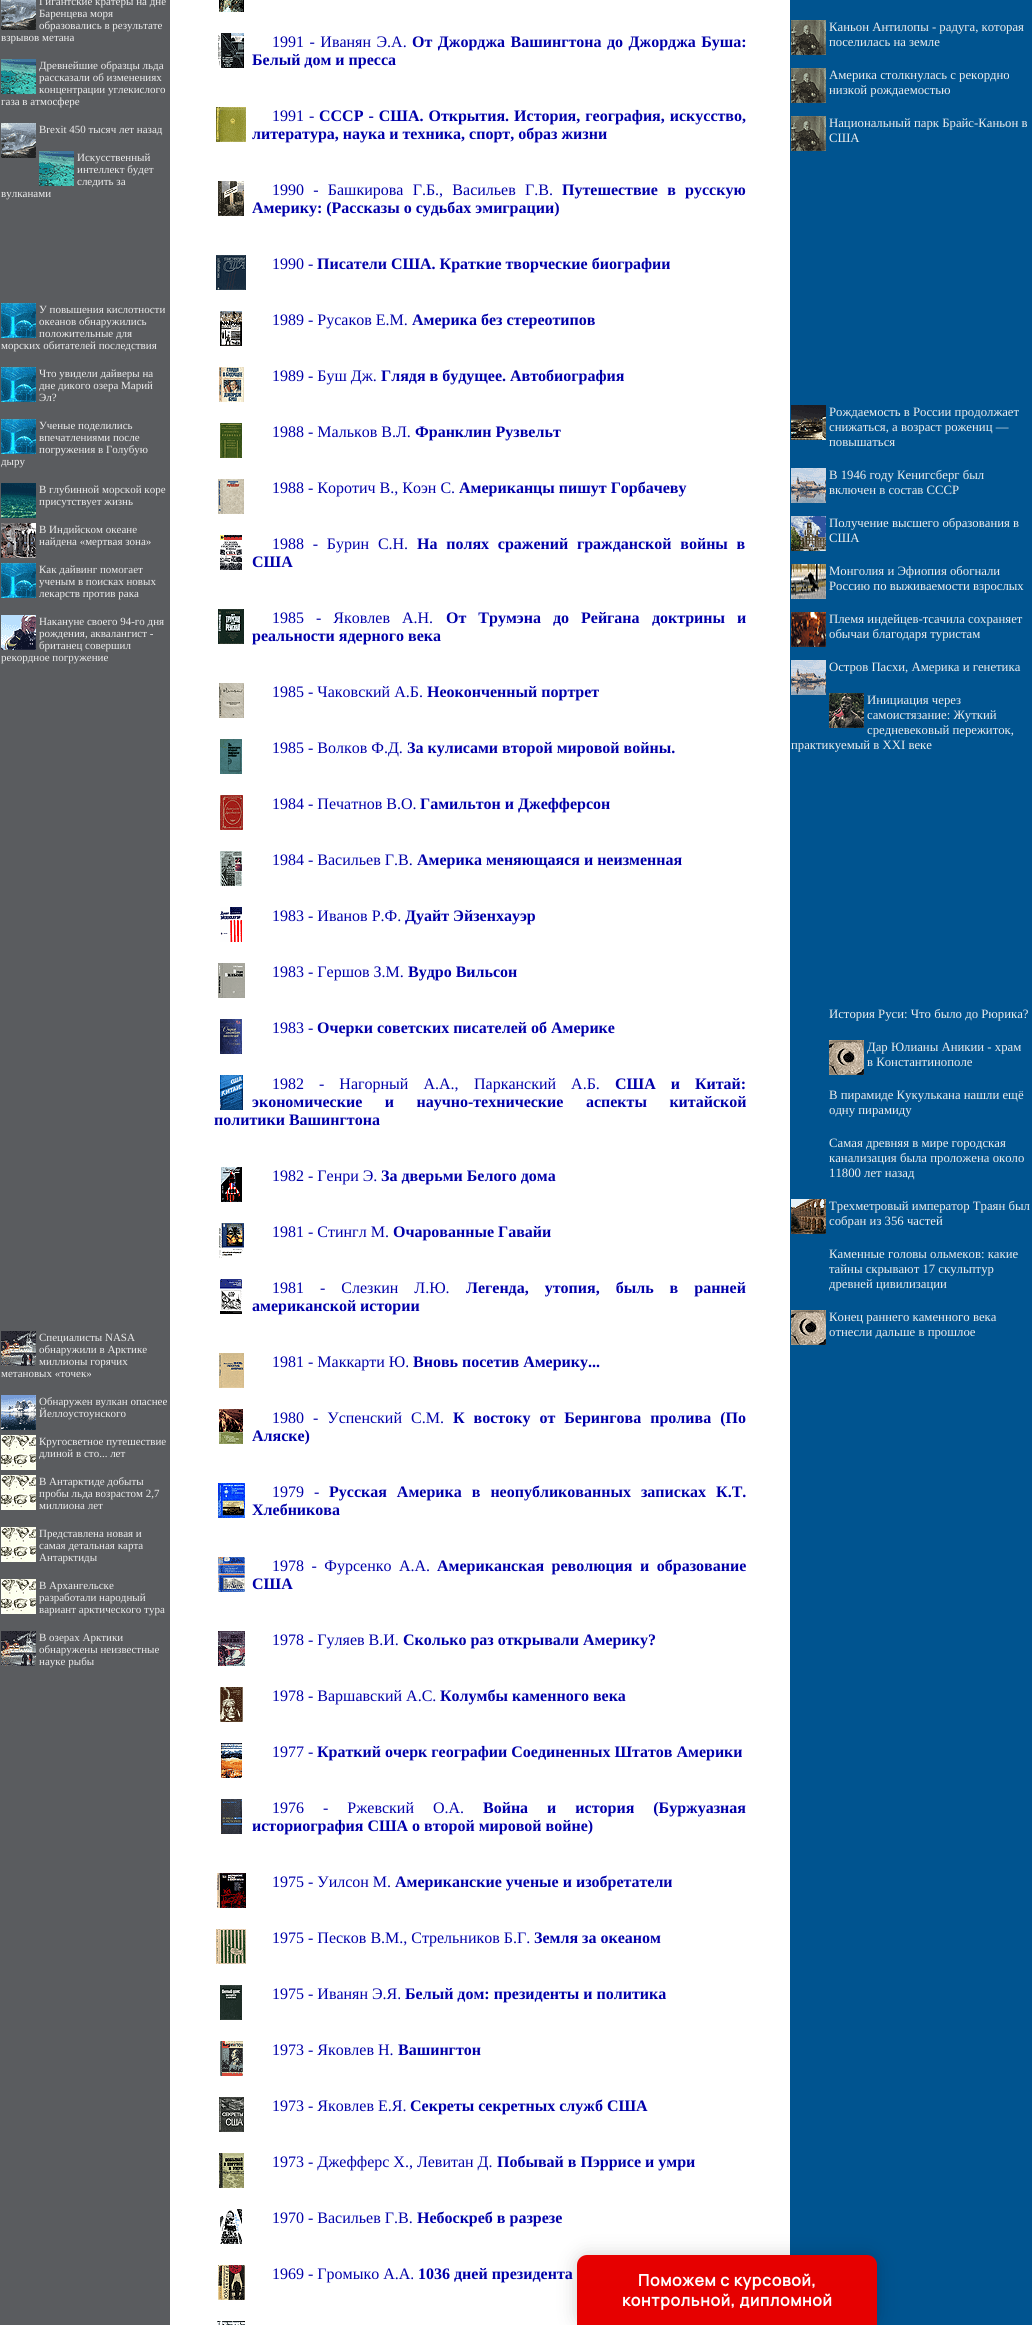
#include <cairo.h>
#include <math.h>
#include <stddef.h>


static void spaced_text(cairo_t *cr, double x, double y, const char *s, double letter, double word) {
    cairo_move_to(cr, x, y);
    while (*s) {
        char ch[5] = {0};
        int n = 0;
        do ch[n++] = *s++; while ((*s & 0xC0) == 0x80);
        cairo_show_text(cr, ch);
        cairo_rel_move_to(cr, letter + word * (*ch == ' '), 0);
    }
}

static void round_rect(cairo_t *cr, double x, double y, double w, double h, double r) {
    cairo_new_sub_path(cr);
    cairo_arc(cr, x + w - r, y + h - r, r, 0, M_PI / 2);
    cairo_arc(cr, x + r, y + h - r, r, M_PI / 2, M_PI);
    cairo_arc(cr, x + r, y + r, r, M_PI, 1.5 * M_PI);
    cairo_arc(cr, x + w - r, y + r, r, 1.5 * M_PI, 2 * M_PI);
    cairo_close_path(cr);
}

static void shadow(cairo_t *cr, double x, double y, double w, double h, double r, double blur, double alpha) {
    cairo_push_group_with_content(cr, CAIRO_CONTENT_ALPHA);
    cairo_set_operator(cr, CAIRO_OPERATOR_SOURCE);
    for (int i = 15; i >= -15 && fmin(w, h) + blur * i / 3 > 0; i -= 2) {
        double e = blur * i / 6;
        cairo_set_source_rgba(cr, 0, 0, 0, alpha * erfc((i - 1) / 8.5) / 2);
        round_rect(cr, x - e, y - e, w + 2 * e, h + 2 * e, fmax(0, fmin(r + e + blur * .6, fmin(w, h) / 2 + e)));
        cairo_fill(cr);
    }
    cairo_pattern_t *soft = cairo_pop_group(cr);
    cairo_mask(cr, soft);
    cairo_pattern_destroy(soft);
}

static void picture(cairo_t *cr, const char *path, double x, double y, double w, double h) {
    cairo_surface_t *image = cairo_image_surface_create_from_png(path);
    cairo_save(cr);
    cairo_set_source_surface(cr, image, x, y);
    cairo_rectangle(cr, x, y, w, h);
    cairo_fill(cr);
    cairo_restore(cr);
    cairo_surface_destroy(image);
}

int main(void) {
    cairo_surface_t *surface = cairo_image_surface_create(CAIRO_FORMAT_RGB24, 1032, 2325);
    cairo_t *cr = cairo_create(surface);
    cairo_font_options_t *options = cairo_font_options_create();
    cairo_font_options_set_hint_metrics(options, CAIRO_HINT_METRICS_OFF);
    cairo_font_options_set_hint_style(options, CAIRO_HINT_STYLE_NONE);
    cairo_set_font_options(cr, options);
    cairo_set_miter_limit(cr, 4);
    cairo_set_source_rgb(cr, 1, 1, 1);
    cairo_paint(cr);
    cairo_set_source_rgb(cr, 0.353, 0.361, 0.373);
    cairo_rectangle(cr, 0, 0, 170, 2325);
    cairo_fill(cr);
    picture(cr, "img1.png", 1, 0, 35, 30);
    cairo_select_font_face(cr, "Liberation Serif", CAIRO_FONT_SLANT_NORMAL, CAIRO_FONT_WEIGHT_NORMAL);
    cairo_set_font_size(cr, 11);
    cairo_set_source_rgb(cr, 0.933, 0.933, 0.933);
    cairo_move_to(cr, 39, 5);
    cairo_show_text(cr, "Гигантские кратеры на дне");
    cairo_move_to(cr, 39, 17);
    cairo_show_text(cr, "Баренцева моря");
    cairo_move_to(cr, 39, 29);
    cairo_show_text(cr, "образовались в результате");
    cairo_move_to(cr, 1, 41);
    cairo_show_text(cr, "взрывов метана");
    picture(cr, "img2.png", 1, 59, 35, 35);
    cairo_move_to(cr, 39, 69);
    cairo_show_text(cr, "Древнейшие образцы льда");
    cairo_move_to(cr, 39, 81);
    cairo_show_text(cr, "рассказали об изменениях");
    cairo_move_to(cr, 39, 93);
    cairo_show_text(cr, "концентрации углекислого");
    cairo_move_to(cr, 1, 105);
    cairo_show_text(cr, "газа в атмосфере");
    picture(cr, "img3.png", 1, 123, 35, 35);
    cairo_move_to(cr, 39, 133);
    cairo_show_text(cr, "Brexit 450 тысяч лет назад");
    picture(cr, "img2.png", 39, 151, 35, 35);
    cairo_move_to(cr, 77, 161);
    cairo_show_text(cr, "Искусственный");
    cairo_move_to(cr, 77, 173);
    cairo_show_text(cr, "интеллект будет");
    cairo_move_to(cr, 77, 185);
    cairo_show_text(cr, "следить за");
    cairo_move_to(cr, 1, 197);
    cairo_show_text(cr, "вулканами");
    picture(cr, "img4.png", 1, 303, 35, 35);
    cairo_move_to(cr, 39, 313);
    cairo_show_text(cr, "У повышения кислотности");
    cairo_move_to(cr, 39, 325);
    cairo_show_text(cr, "океанов обнаружились");
    cairo_move_to(cr, 39, 337);
    cairo_show_text(cr, "положительные для");
    cairo_move_to(cr, 1, 349);
    cairo_show_text(cr, "морских обитателей последствия");
    picture(cr, "img4.png", 1, 367, 35, 35);
    cairo_move_to(cr, 39, 377);
    cairo_show_text(cr, "Что увидели дайверы на");
    cairo_move_to(cr, 39, 389);
    cairo_show_text(cr, "дне дикого озера Марий");
    cairo_move_to(cr, 39, 401);
    cairo_show_text(cr, "Эл?");
    picture(cr, "img4.png", 1, 419, 35, 35);
    cairo_move_to(cr, 39, 429);
    cairo_show_text(cr, "Ученые поделились");
    cairo_move_to(cr, 39, 441);
    cairo_show_text(cr, "впечатлениями после");
    cairo_move_to(cr, 39, 453);
    cairo_show_text(cr, "погружения в Голубую");
    cairo_move_to(cr, 1, 465);
    cairo_show_text(cr, "дыру");
    picture(cr, "img5.png", 1, 483, 35, 35);
    cairo_move_to(cr, 39, 493);
    cairo_show_text(cr, "В глубинной морской коре");
    cairo_move_to(cr, 39, 505);
    cairo_show_text(cr, "присутствует жизнь");
    picture(cr, "img6.png", 1, 523, 35, 35);
    cairo_move_to(cr, 39, 533);
    cairo_show_text(cr, "В Индийском океане");
    cairo_move_to(cr, 39, 545);
    cairo_show_text(cr, "найдена «мертвая зона»");
    picture(cr, "img4.png", 1, 563, 35, 35);
    cairo_move_to(cr, 39, 573);
    cairo_show_text(cr, "Как дайвинг помогает");
    cairo_move_to(cr, 39, 585);
    cairo_show_text(cr, "ученым в поисках новых");
    cairo_move_to(cr, 39, 597);
    cairo_show_text(cr, "лекарств против рака");
    picture(cr, "img7.png", 1, 615, 35, 35);
    cairo_move_to(cr, 39, 625);
    cairo_show_text(cr, "Накануне своего 94-го дня");
    cairo_move_to(cr, 39, 637);
    cairo_show_text(cr, "рождения, аквалангист -");
    cairo_move_to(cr, 39, 649);
    cairo_show_text(cr, "британец совершил");
    cairo_move_to(cr, 1, 661);
    cairo_show_text(cr, "рекордное погружение");
    picture(cr, "img8.png", 1, 1331, 35, 35);
    cairo_move_to(cr, 39, 1341);
    cairo_show_text(cr, "Специалисты NASA");
    cairo_move_to(cr, 39, 1353);
    cairo_show_text(cr, "обнаружили в Арктике");
    cairo_move_to(cr, 39, 1365);
    cairo_show_text(cr, "миллионы горячих");
    cairo_move_to(cr, 1, 1377);
    cairo_show_text(cr, "метановых «точек»");
    picture(cr, "img9.png", 1, 1395, 35, 35);
    cairo_move_to(cr, 39, 1405);
    cairo_show_text(cr, "Обнаружен вулкан опаснее");
    cairo_move_to(cr, 39, 1417);
    cairo_show_text(cr, "Йеллоустоунского");
    picture(cr, "img10.png", 1, 1435, 35, 35);
    cairo_move_to(cr, 39, 1445);
    cairo_show_text(cr, "Кругосветное путешествие");
    cairo_move_to(cr, 39, 1457);
    cairo_show_text(cr, "длиной в сто... лет");
    picture(cr, "img10.png", 1, 1475, 35, 35);
    cairo_move_to(cr, 39, 1485);
    cairo_show_text(cr, "В Антарктиде добыты");
    cairo_move_to(cr, 39, 1497);
    cairo_show_text(cr, "пробы льда возрастом 2,7");
    cairo_move_to(cr, 39, 1509);
    cairo_show_text(cr, "миллиона лет");
    picture(cr, "img10.png", 1, 1527, 35, 35);
    cairo_move_to(cr, 39, 1537);
    cairo_show_text(cr, "Представлена новая и");
    cairo_move_to(cr, 39, 1549);
    cairo_show_text(cr, "самая детальная карта");
    cairo_move_to(cr, 39, 1561);
    cairo_show_text(cr, "Антарктиды");
    picture(cr, "img10.png", 1, 1579, 35, 35);
    cairo_move_to(cr, 39, 1589);
    cairo_show_text(cr, "В Архангельске");
    cairo_move_to(cr, 39, 1601);
    cairo_show_text(cr, "разработали народный");
    cairo_move_to(cr, 39, 1613);
    cairo_show_text(cr, "вариант арктического тура");
    picture(cr, "img8.png", 1, 1631, 35, 35);
    cairo_move_to(cr, 39, 1641);
    cairo_show_text(cr, "В озерах Арктики");
    cairo_move_to(cr, 39, 1653);
    cairo_show_text(cr, "обнаружены неизвестные");
    cairo_move_to(cr, 39, 1665);
    cairo_show_text(cr, "науке рыбы");
    picture(cr, "img11.png", 219, 0, 25, 12);
    picture(cr, "img12.png", 218, 33, 26, 35);
    cairo_set_font_size(cr, 16);
    cairo_set_source_rgb(cr, 0, 0, 0.667);
    spaced_text(cr, 272, 47, "1991 - Иванян Э.А.", 0, 1.5);
    cairo_select_font_face(cr, "Liberation Serif", CAIRO_FONT_SLANT_NORMAL, CAIRO_FONT_WEIGHT_BOLD);
    spaced_text(cr, 412, 47, "От Джорджа Вашингтона до Джорджа Буша:", 0, 1.5);
    cairo_move_to(cr, 252, 65);
    cairo_show_text(cr, "Белый дом и пресса");
    picture(cr, "img13.png", 216, 107, 30, 35);
    cairo_select_font_face(cr, "Liberation Serif", CAIRO_FONT_SLANT_NORMAL, CAIRO_FONT_WEIGHT_NORMAL);
    spaced_text(cr, 272, 121, "1991 -", 0, 1);
    cairo_select_font_face(cr, "Liberation Serif", CAIRO_FONT_SLANT_NORMAL, CAIRO_FONT_WEIGHT_BOLD);
    spaced_text(cr, 319, 121, "СССР - США. Открытия. История, география, искусство,", 0, 1);
    cairo_move_to(cr, 252, 139);
    cairo_show_text(cr, "литература, наука и техника, спорт, образ жизни");
    picture(cr, "img14.png", 218, 181, 26, 35);
    cairo_select_font_face(cr, "Liberation Serif", CAIRO_FONT_SLANT_NORMAL, CAIRO_FONT_WEIGHT_NORMAL);
    spaced_text(cr, 272, 195, "1990 - Башкирова Г.Б., Васильев Г.В.", 0, 5.25);
    cairo_select_font_face(cr, "Liberation Serif", CAIRO_FONT_SLANT_NORMAL, CAIRO_FONT_WEIGHT_BOLD);
    spaced_text(cr, 562, 195, "Путешествие в русскую", 0, 5.25);
    cairo_move_to(cr, 252, 213);
    cairo_show_text(cr, "Америку: (Рассказы о судьбах эмиграции)");
    picture(cr, "img15.png", 216, 255, 30, 35);
    cairo_select_font_face(cr, "Liberation Serif", CAIRO_FONT_SLANT_NORMAL, CAIRO_FONT_WEIGHT_NORMAL);
    cairo_move_to(cr, 272, 269);
    cairo_show_text(cr, "1990 -");
    cairo_select_font_face(cr, "Liberation Serif", CAIRO_FONT_SLANT_NORMAL, CAIRO_FONT_WEIGHT_BOLD);
    cairo_move_to(cr, 317, 269);
    cairo_show_text(cr, "Писатели США. Краткие творческие биографии");
    picture(cr, "img16.png", 220, 311, 22, 35);
    cairo_select_font_face(cr, "Liberation Serif", CAIRO_FONT_SLANT_NORMAL, CAIRO_FONT_WEIGHT_NORMAL);
    cairo_move_to(cr, 272, 325);
    cairo_show_text(cr, "1989 - Русаков Е.М.");
    cairo_select_font_face(cr, "Liberation Serif", CAIRO_FONT_SLANT_NORMAL, CAIRO_FONT_WEIGHT_BOLD);
    cairo_move_to(cr, 412, 325);
    cairo_show_text(cr, "Америка без стереотипов");
    picture(cr, "img17.png", 219, 367, 25, 35);
    cairo_select_font_face(cr, "Liberation Serif", CAIRO_FONT_SLANT_NORMAL, CAIRO_FONT_WEIGHT_NORMAL);
    cairo_move_to(cr, 272, 381);
    cairo_show_text(cr, "1989 - Буш Дж.");
    cairo_select_font_face(cr, "Liberation Serif", CAIRO_FONT_SLANT_NORMAL, CAIRO_FONT_WEIGHT_BOLD);
    cairo_move_to(cr, 381, 381);
    cairo_show_text(cr, "Глядя в будущее. Автобиография");
    picture(cr, "img18.png", 220, 423, 22, 35);
    cairo_select_font_face(cr, "Liberation Serif", CAIRO_FONT_SLANT_NORMAL, CAIRO_FONT_WEIGHT_NORMAL);
    cairo_move_to(cr, 272, 437);
    cairo_show_text(cr, "1988 - Мальков В.Л.");
    cairo_select_font_face(cr, "Liberation Serif", CAIRO_FONT_SLANT_NORMAL, CAIRO_FONT_WEIGHT_BOLD);
    cairo_move_to(cr, 415, 437);
    cairo_show_text(cr, "Франклин Рузвельт");
    picture(cr, "img19.png", 218, 479, 26, 35);
    cairo_select_font_face(cr, "Liberation Serif", CAIRO_FONT_SLANT_NORMAL, CAIRO_FONT_WEIGHT_NORMAL);
    cairo_move_to(cr, 272, 493);
    cairo_show_text(cr, "1988 - Коротич В., Коэн С.");
    cairo_select_font_face(cr, "Liberation Serif", CAIRO_FONT_SLANT_NORMAL, CAIRO_FONT_WEIGHT_BOLD);
    cairo_move_to(cr, 459, 493);
    cairo_show_text(cr, "Американцы пишут Горбачеву");
    picture(cr, "img20.png", 220, 535, 22, 35);
    cairo_select_font_face(cr, "Liberation Serif", CAIRO_FONT_SLANT_NORMAL, CAIRO_FONT_WEIGHT_NORMAL);
    spaced_text(cr, 272, 549, "1988 - Бурин С.Н.", 0, 4.75);
    cairo_select_font_face(cr, "Liberation Serif", CAIRO_FONT_SLANT_NORMAL, CAIRO_FONT_WEIGHT_BOLD);
    spaced_text(cr, 417, 549, "На полях сражений гражданской войны в", 0, 4.75);
    cairo_move_to(cr, 252, 567);
    cairo_show_text(cr, "США");
    picture(cr, "img21.png", 218, 609, 26, 35);
    cairo_select_font_face(cr, "Liberation Serif", CAIRO_FONT_SLANT_NORMAL, CAIRO_FONT_WEIGHT_NORMAL);
    spaced_text(cr, 272, 623, "1985 - Яковлев А.Н.", 0, 8);
    cairo_select_font_face(cr, "Liberation Serif", CAIRO_FONT_SLANT_NORMAL, CAIRO_FONT_WEIGHT_BOLD);
    spaced_text(cr, 446, 623, "От Трумэна до Рейгана", 0, 8);
    spaced_text(cr, 652, 623, "доктрины и", 0, 8);
    cairo_move_to(cr, 252, 641);
    cairo_show_text(cr, "реальности ядерного века");
    picture(cr, "img22.png", 219, 683, 25, 35);
    cairo_select_font_face(cr, "Liberation Serif", CAIRO_FONT_SLANT_NORMAL, CAIRO_FONT_WEIGHT_NORMAL);
    cairo_move_to(cr, 272, 697);
    cairo_show_text(cr, "1985 - Чаковский А.Б.");
    cairo_select_font_face(cr, "Liberation Serif", CAIRO_FONT_SLANT_NORMAL, CAIRO_FONT_WEIGHT_BOLD);
    cairo_move_to(cr, 427, 697);
    cairo_show_text(cr, "Неоконченный портрет");
    picture(cr, "img23.png", 220, 739, 22, 35);
    cairo_select_font_face(cr, "Liberation Serif", CAIRO_FONT_SLANT_NORMAL, CAIRO_FONT_WEIGHT_NORMAL);
    cairo_move_to(cr, 272, 753);
    cairo_show_text(cr, "1985 - Волков Ф.Д.");
    cairo_select_font_face(cr, "Liberation Serif", CAIRO_FONT_SLANT_NORMAL, CAIRO_FONT_WEIGHT_BOLD);
    cairo_move_to(cr, 407, 753);
    cairo_show_text(cr, "За кулисами второй мировой войны.");
    picture(cr, "img24.png", 220, 795, 23, 35);
    cairo_select_font_face(cr, "Liberation Serif", CAIRO_FONT_SLANT_NORMAL, CAIRO_FONT_WEIGHT_NORMAL);
    cairo_move_to(cr, 272, 809);
    cairo_show_text(cr, "1984 - Печатнов В.О.");
    cairo_select_font_face(cr, "Liberation Serif", CAIRO_FONT_SLANT_NORMAL, CAIRO_FONT_WEIGHT_BOLD);
    cairo_move_to(cr, 420, 809);
    cairo_show_text(cr, "Гамильтон и Джефферсон");
    picture(cr, "img25.png", 220, 851, 22, 35);
    cairo_select_font_face(cr, "Liberation Serif", CAIRO_FONT_SLANT_NORMAL, CAIRO_FONT_WEIGHT_NORMAL);
    cairo_move_to(cr, 272, 865);
    cairo_show_text(cr, "1984 - Васильев Г.В.");
    cairo_select_font_face(cr, "Liberation Serif", CAIRO_FONT_SLANT_NORMAL, CAIRO_FONT_WEIGHT_BOLD);
    cairo_move_to(cr, 417, 865);
    cairo_show_text(cr, "Америка меняющаяся и неизменная");
    picture(cr, "img26.png", 220, 907, 22, 35);
    cairo_select_font_face(cr, "Liberation Serif", CAIRO_FONT_SLANT_NORMAL, CAIRO_FONT_WEIGHT_NORMAL);
    cairo_move_to(cr, 272, 921);
    cairo_show_text(cr, "1983 - Иванов Р.Ф.");
    cairo_select_font_face(cr, "Liberation Serif", CAIRO_FONT_SLANT_NORMAL, CAIRO_FONT_WEIGHT_BOLD);
    cairo_move_to(cr, 405, 921);
    cairo_show_text(cr, "Дуайт Эйзенхауэр");
    picture(cr, "img27.png", 218, 963, 27, 35);
    cairo_select_font_face(cr, "Liberation Serif", CAIRO_FONT_SLANT_NORMAL, CAIRO_FONT_WEIGHT_NORMAL);
    cairo_move_to(cr, 272, 977);
    cairo_show_text(cr, "1983 - Гершов З.М.");
    cairo_select_font_face(cr, "Liberation Serif", CAIRO_FONT_SLANT_NORMAL, CAIRO_FONT_WEIGHT_BOLD);
    cairo_move_to(cr, 408, 977);
    cairo_show_text(cr, "Вудро Вильсон");
    picture(cr, "img28.png", 220, 1019, 22, 35);
    cairo_select_font_face(cr, "Liberation Serif", CAIRO_FONT_SLANT_NORMAL, CAIRO_FONT_WEIGHT_NORMAL);
    cairo_move_to(cr, 272, 1033);
    cairo_show_text(cr, "1983 -");
    cairo_select_font_face(cr, "Liberation Serif", CAIRO_FONT_SLANT_NORMAL, CAIRO_FONT_WEIGHT_BOLD);
    cairo_move_to(cr, 317, 1033);
    cairo_show_text(cr, "Очерки советских писателей об Америке");
    picture(cr, "img29.png", 220, 1075, 23, 35);
    cairo_select_font_face(cr, "Liberation Serif", CAIRO_FONT_SLANT_NORMAL, CAIRO_FONT_WEIGHT_NORMAL);
    spaced_text(cr, 272, 1089, "1982 - Нагорный А.А.,", 0, 11);
    spaced_text(cr, 474, 1089, "Парканский А.Б.", 0, 11);
    cairo_select_font_face(cr, "Liberation Serif", CAIRO_FONT_SLANT_NORMAL, CAIRO_FONT_WEIGHT_BOLD);
    spaced_text(cr, 615, 1089, "США и Китай:", 0, 11);
    spaced_text(cr, 252, 1107, "экономические и научно-технические аспекты китайской", 0, 18.5);
    cairo_move_to(cr, 214, 1125);
    cairo_show_text(cr, "политики Вашингтона");
    picture(cr, "img30.png", 221, 1167, 21, 35);
    cairo_select_font_face(cr, "Liberation Serif", CAIRO_FONT_SLANT_NORMAL, CAIRO_FONT_WEIGHT_NORMAL);
    cairo_move_to(cr, 272, 1181);
    cairo_show_text(cr, "1982 - Генри Э.");
    cairo_select_font_face(cr, "Liberation Serif", CAIRO_FONT_SLANT_NORMAL, CAIRO_FONT_WEIGHT_BOLD);
    cairo_move_to(cr, 381, 1181);
    cairo_show_text(cr, "За дверьми Белого дома");
    picture(cr, "img31.png", 219, 1223, 25, 35);
    cairo_select_font_face(cr, "Liberation Serif", CAIRO_FONT_SLANT_NORMAL, CAIRO_FONT_WEIGHT_NORMAL);
    cairo_move_to(cr, 272, 1237);
    cairo_show_text(cr, "1981 - Стингл М.");
    cairo_select_font_face(cr, "Liberation Serif", CAIRO_FONT_SLANT_NORMAL, CAIRO_FONT_WEIGHT_BOLD);
    cairo_move_to(cr, 393, 1237);
    cairo_show_text(cr, "Очарованные Гавайи");
    picture(cr, "img32.png", 220, 1279, 22, 35);
    cairo_select_font_face(cr, "Liberation Serif", CAIRO_FONT_SLANT_NORMAL, CAIRO_FONT_WEIGHT_NORMAL);
    spaced_text(cr, 272, 1293, "1981 - Слезкин Л.Ю.", 0, 12);
    cairo_select_font_face(cr, "Liberation Serif", CAIRO_FONT_SLANT_NORMAL, CAIRO_FONT_WEIGHT_BOLD);
    spaced_text(cr, 466, 1293, "Легенда, утопия, быль в ранней", 0, 12);
    cairo_move_to(cr, 252, 1311);
    cairo_show_text(cr, "американской истории");
    picture(cr, "img33.png", 219, 1353, 25, 35);
    cairo_select_font_face(cr, "Liberation Serif", CAIRO_FONT_SLANT_NORMAL, CAIRO_FONT_WEIGHT_NORMAL);
    cairo_move_to(cr, 272, 1367);
    cairo_show_text(cr, "1981 - Маккарти Ю.");
    cairo_select_font_face(cr, "Liberation Serif", CAIRO_FONT_SLANT_NORMAL, CAIRO_FONT_WEIGHT_BOLD);
    cairo_move_to(cr, 413, 1367);
    cairo_show_text(cr, "Вновь посетив Америку...");
    picture(cr, "img34.png", 219, 1409, 24, 35);
    cairo_select_font_face(cr, "Liberation Serif", CAIRO_FONT_SLANT_NORMAL, CAIRO_FONT_WEIGHT_NORMAL);
    spaced_text(cr, 272, 1423, "1980 - Успенский С.М.", 0, 5);
    cairo_select_font_face(cr, "Liberation Serif", CAIRO_FONT_SLANT_NORMAL, CAIRO_FONT_WEIGHT_BOLD);
    spaced_text(cr, 453, 1423, "К востоку от Берингова пролива (По", 0, 5);
    cairo_move_to(cr, 252, 1441);
    cairo_show_text(cr, "Аляске)");
    picture(cr, "img35.png", 218, 1483, 27, 35);
    cairo_select_font_face(cr, "Liberation Serif", CAIRO_FONT_SLANT_NORMAL, CAIRO_FONT_WEIGHT_NORMAL);
    spaced_text(cr, 272, 1497, "1979 -", 0, 6);
    cairo_select_font_face(cr, "Liberation Serif", CAIRO_FONT_SLANT_NORMAL, CAIRO_FONT_WEIGHT_BOLD);
    spaced_text(cr, 329, 1497, "Русская Америка в неопубликованных записках К.Т.", 0, 6);
    cairo_move_to(cr, 252, 1515);
    cairo_show_text(cr, "Хлебникова");
    picture(cr, "img36.png", 218, 1557, 27, 35);
    cairo_select_font_face(cr, "Liberation Serif", CAIRO_FONT_SLANT_NORMAL, CAIRO_FONT_WEIGHT_NORMAL);
    spaced_text(cr, 272, 1571, "1978 - Фурсенко А.А.", 0, 3.5);
    cairo_select_font_face(cr, "Liberation Serif", CAIRO_FONT_SLANT_NORMAL, CAIRO_FONT_WEIGHT_BOLD);
    spaced_text(cr, 437, 1571, "Американская революция и образование", 0, 3.5);
    cairo_move_to(cr, 252, 1589);
    cairo_show_text(cr, "США");
    picture(cr, "img37.png", 218, 1631, 27, 35);
    cairo_select_font_face(cr, "Liberation Serif", CAIRO_FONT_SLANT_NORMAL, CAIRO_FONT_WEIGHT_NORMAL);
    cairo_move_to(cr, 272, 1645);
    cairo_show_text(cr, "1978 - Гуляев В.И.");
    cairo_select_font_face(cr, "Liberation Serif", CAIRO_FONT_SLANT_NORMAL, CAIRO_FONT_WEIGHT_BOLD);
    cairo_move_to(cr, 403, 1645);
    cairo_show_text(cr, "Сколько раз открывали Америку?");
    picture(cr, "img38.png", 220, 1687, 23, 35);
    cairo_select_font_face(cr, "Liberation Serif", CAIRO_FONT_SLANT_NORMAL, CAIRO_FONT_WEIGHT_NORMAL);
    cairo_move_to(cr, 272, 1701);
    cairo_show_text(cr, "1978 - Варшавский А.С.");
    cairo_select_font_face(cr, "Liberation Serif", CAIRO_FONT_SLANT_NORMAL, CAIRO_FONT_WEIGHT_BOLD);
    cairo_move_to(cr, 440, 1701);
    cairo_show_text(cr, "Колумбы каменного века");
    picture(cr, "img39.png", 221, 1743, 21, 35);
    cairo_select_font_face(cr, "Liberation Serif", CAIRO_FONT_SLANT_NORMAL, CAIRO_FONT_WEIGHT_NORMAL);
    cairo_move_to(cr, 272, 1757);
    cairo_show_text(cr, "1977 -");
    cairo_select_font_face(cr, "Liberation Serif", CAIRO_FONT_SLANT_NORMAL, CAIRO_FONT_WEIGHT_BOLD);
    cairo_move_to(cr, 317, 1757);
    cairo_show_text(cr, "Краткий очерк географии Соединенных Штатов Америки");
    picture(cr, "img40.png", 221, 1799, 21, 35);
    cairo_select_font_face(cr, "Liberation Serif", CAIRO_FONT_SLANT_NORMAL, CAIRO_FONT_WEIGHT_NORMAL);
    spaced_text(cr, 272, 1813, "1976 - Ржевский О.А.", 0, 15);
    cairo_select_font_face(cr, "Liberation Serif", CAIRO_FONT_SLANT_NORMAL, CAIRO_FONT_WEIGHT_BOLD);
    spaced_text(cr, 483, 1813, "Война и история (Буржуазная", 0, 15);
    cairo_move_to(cr, 252, 1831);
    cairo_show_text(cr, "историография США о второй мировой войне)");
    picture(cr, "img41.png", 217, 1873, 29, 35);
    cairo_select_font_face(cr, "Liberation Serif", CAIRO_FONT_SLANT_NORMAL, CAIRO_FONT_WEIGHT_NORMAL);
    cairo_move_to(cr, 272, 1887);
    cairo_show_text(cr, "1975 - Уилсон М.");
    cairo_select_font_face(cr, "Liberation Serif", CAIRO_FONT_SLANT_NORMAL, CAIRO_FONT_WEIGHT_BOLD);
    cairo_move_to(cr, 395, 1887);
    cairo_show_text(cr, "Американские ученые и изобретатели");
    picture(cr, "img42.png", 216, 1929, 30, 35);
    cairo_select_font_face(cr, "Liberation Serif", CAIRO_FONT_SLANT_NORMAL, CAIRO_FONT_WEIGHT_NORMAL);
    cairo_move_to(cr, 272, 1943);
    cairo_show_text(cr, "1975 - Песков В.М., Стрельников Б.Г.");
    cairo_select_font_face(cr, "Liberation Serif", CAIRO_FONT_SLANT_NORMAL, CAIRO_FONT_WEIGHT_BOLD);
    cairo_move_to(cr, 534, 1943);
    cairo_show_text(cr, "Земля за океаном");
    picture(cr, "img43.png", 220, 1985, 22, 35);
    cairo_select_font_face(cr, "Liberation Serif", CAIRO_FONT_SLANT_NORMAL, CAIRO_FONT_WEIGHT_NORMAL);
    cairo_move_to(cr, 272, 1999);
    cairo_show_text(cr, "1975 - Иванян Э.Я.");
    cairo_select_font_face(cr, "Liberation Serif", CAIRO_FONT_SLANT_NORMAL, CAIRO_FONT_WEIGHT_BOLD);
    cairo_move_to(cr, 405, 1999);
    cairo_show_text(cr, "Белый дом: президенты и политика");
    picture(cr, "img44.png", 220, 2041, 23, 35);
    cairo_select_font_face(cr, "Liberation Serif", CAIRO_FONT_SLANT_NORMAL, CAIRO_FONT_WEIGHT_NORMAL);
    cairo_move_to(cr, 272, 2055);
    cairo_show_text(cr, "1973 - Яковлев Н.");
    cairo_select_font_face(cr, "Liberation Serif", CAIRO_FONT_SLANT_NORMAL, CAIRO_FONT_WEIGHT_BOLD);
    cairo_move_to(cr, 398, 2055);
    cairo_show_text(cr, "Вашингтон");
    picture(cr, "img45.png", 219, 2097, 25, 35);
    cairo_select_font_face(cr, "Liberation Serif", CAIRO_FONT_SLANT_NORMAL, CAIRO_FONT_WEIGHT_NORMAL);
    cairo_move_to(cr, 272, 2111);
    cairo_show_text(cr, "1973 - Яковлев Е.Я.");
    cairo_select_font_face(cr, "Liberation Serif", CAIRO_FONT_SLANT_NORMAL, CAIRO_FONT_WEIGHT_BOLD);
    cairo_move_to(cr, 410, 2111);
    cairo_show_text(cr, "Секреты секретных служб США");
    picture(cr, "img46.png", 219, 2153, 25, 35);
    cairo_select_font_face(cr, "Liberation Serif", CAIRO_FONT_SLANT_NORMAL, CAIRO_FONT_WEIGHT_NORMAL);
    cairo_move_to(cr, 272, 2167);
    cairo_show_text(cr, "1973 - Джефферс Х., Левитан Д.");
    cairo_select_font_face(cr, "Liberation Serif", CAIRO_FONT_SLANT_NORMAL, CAIRO_FONT_WEIGHT_BOLD);
    cairo_move_to(cr, 497, 2167);
    cairo_show_text(cr, "Побывай в Пэррисе и умри");
    picture(cr, "img47.png", 220, 2209, 22, 35);
    cairo_select_font_face(cr, "Liberation Serif", CAIRO_FONT_SLANT_NORMAL, CAIRO_FONT_WEIGHT_NORMAL);
    cairo_move_to(cr, 272, 2223);
    cairo_show_text(cr, "1970 - Васильев Г.В.");
    cairo_select_font_face(cr, "Liberation Serif", CAIRO_FONT_SLANT_NORMAL, CAIRO_FONT_WEIGHT_BOLD);
    cairo_move_to(cr, 417, 2223);
    cairo_show_text(cr, "Небоскреб в разрезе");
    picture(cr, "img48.png", 218, 2265, 27, 35);
    cairo_select_font_face(cr, "Liberation Serif", CAIRO_FONT_SLANT_NORMAL, CAIRO_FONT_WEIGHT_NORMAL);
    cairo_move_to(cr, 272, 2279);
    cairo_show_text(cr, "1969 - Громыко А.А.");
    cairo_select_font_face(cr, "Liberation Serif", CAIRO_FONT_SLANT_NORMAL, CAIRO_FONT_WEIGHT_BOLD);
    cairo_move_to(cr, 418, 2279);
    cairo_show_text(cr, "1036 дней президента");
    picture(cr, "img49.png", 217, 2321, 28, 4);
    cairo_set_source_rgb(cr, 0, 0.329, 0.565);
    cairo_rectangle(cr, 790, 0, 242, 2325);
    cairo_fill(cr);
    picture(cr, "img50.png", 791, 20, 35, 35);
    cairo_select_font_face(cr, "Liberation Serif", CAIRO_FONT_SLANT_NORMAL, CAIRO_FONT_WEIGHT_NORMAL);
    cairo_set_font_size(cr, 12.75);
    cairo_set_source_rgb(cr, 0.933, 0.933, 0.933);
    cairo_move_to(cr, 829, 31);
    cairo_show_text(cr, "Каньон Антилопы - радуга, которая");
    cairo_move_to(cr, 829, 46);
    cairo_show_text(cr, "поселилась на земле");
    picture(cr, "img50.png", 791, 68, 35, 35);
    cairo_move_to(cr, 829, 79);
    cairo_show_text(cr, "Америка столкнулась с рекордно");
    cairo_move_to(cr, 829, 94);
    cairo_show_text(cr, "низкой рождаемостью");
    picture(cr, "img50.png", 791, 116, 35, 35);
    cairo_move_to(cr, 829, 127);
    cairo_show_text(cr, "Национальный парк Брайс-Каньон в");
    cairo_move_to(cr, 829, 142);
    cairo_show_text(cr, "США");
    picture(cr, "img51.png", 791, 405, 35, 35);
    cairo_move_to(cr, 829, 416);
    cairo_show_text(cr, "Рождаемость в России продолжает");
    cairo_move_to(cr, 829, 431);
    cairo_show_text(cr, "снижаться, а возраст рожениц —");
    cairo_move_to(cr, 829, 446);
    cairo_show_text(cr, "повышаться");
    picture(cr, "img52.png", 791, 468, 35, 35);
    cairo_move_to(cr, 829, 479);
    cairo_show_text(cr, "В 1946 году Кенигсберг был");
    cairo_move_to(cr, 829, 494);
    cairo_show_text(cr, "включен в состав СССР");
    picture(cr, "img53.png", 791, 516, 35, 35);
    cairo_move_to(cr, 829, 527);
    cairo_show_text(cr, "Получение высшего образования в");
    cairo_move_to(cr, 829, 542);
    cairo_show_text(cr, "США");
    picture(cr, "img54.png", 791, 564, 35, 35);
    cairo_move_to(cr, 829, 575);
    cairo_show_text(cr, "Монголия и Эфиопия обогнали");
    cairo_move_to(cr, 829, 590);
    cairo_show_text(cr, "Россию по выживаемости взрослых");
    picture(cr, "img55.png", 791, 612, 35, 35);
    cairo_move_to(cr, 829, 623);
    cairo_show_text(cr, "Племя индейцев-тсачила сохраняет");
    cairo_move_to(cr, 829, 638);
    cairo_show_text(cr, "обычаи благодаря туристам");
    picture(cr, "img52.png", 791, 660, 35, 35);
    cairo_move_to(cr, 829, 671);
    cairo_show_text(cr, "Остров Пасхи, Америка и генетика");
    picture(cr, "img56.png", 829, 693, 35, 35);
    cairo_move_to(cr, 867, 704);
    cairo_show_text(cr, "Инициация через");
    cairo_move_to(cr, 867, 719);
    cairo_show_text(cr, "самоистязание: Жуткий");
    cairo_move_to(cr, 867, 734);
    cairo_show_text(cr, "средневековый пережиток,");
    cairo_move_to(cr, 791, 749);
    cairo_show_text(cr, "практикуемый в XXI веке");
    cairo_move_to(cr, 829, 1018);
    cairo_show_text(cr, "История Руси: Что было до Рюрика?");
    picture(cr, "img57.png", 829, 1040, 35, 35);
    cairo_move_to(cr, 867, 1051);
    cairo_show_text(cr, "Дар Юлианы Аникии - храм");
    cairo_move_to(cr, 867, 1066);
    cairo_show_text(cr, "в Константинополе");
    cairo_move_to(cr, 829, 1099);
    cairo_show_text(cr, "В пирамиде Кукулькана нашли ещё");
    cairo_move_to(cr, 829, 1114);
    cairo_show_text(cr, "одну пирамиду");
    cairo_move_to(cr, 829, 1147);
    cairo_show_text(cr, "Самая древняя в мире городская");
    cairo_move_to(cr, 829, 1162);
    cairo_show_text(cr, "канализация была проложена около");
    cairo_move_to(cr, 829, 1177);
    cairo_show_text(cr, "11800 лет назад");
    picture(cr, "img58.png", 791, 1199, 35, 35);
    cairo_move_to(cr, 829, 1210);
    cairo_show_text(cr, "Трехметровый император Траян был");
    cairo_move_to(cr, 829, 1225);
    cairo_show_text(cr, "собран из 356 частей");
    cairo_move_to(cr, 829, 1258);
    cairo_show_text(cr, "Каменные головы ольмеков: какие");
    cairo_move_to(cr, 829, 1273);
    cairo_show_text(cr, "тайны скрывают 17 скульптур");
    cairo_move_to(cr, 829, 1288);
    cairo_show_text(cr, "древней цивилизации");
    picture(cr, "img57.png", 791, 1310, 35, 35);
    cairo_move_to(cr, 829, 1321);
    cairo_show_text(cr, "Конец раннего каменного века");
    cairo_move_to(cr, 829, 1336);
    cairo_show_text(cr, "отнесли дальше в прошлое");
    cairo_set_source_rgb(cr, 0, 0, 0);
    shadow(cr, 577, 2255, 300, 70, 10, 9.5, 0.18);
    cairo_set_source_rgb(cr, 0.902, 0, 0);
    cairo_new_path(cr);
    cairo_move_to(cr, 587, 2255);
    cairo_line_to(cr, 867, 2255);
    cairo_curve_to(cr, 872.5, 2255, 877, 2259.5, 877, 2265);
    cairo_line_to(cr, 877, 2325);
    cairo_line_to(cr, 577, 2325);
    cairo_line_to(cr, 577, 2265);
    cairo_curve_to(cr, 577, 2259.5, 581.5, 2255, 587, 2255);
    cairo_close_path(cr);
    cairo_fill(cr);
    cairo_select_font_face(cr, "Manrope", CAIRO_FONT_SLANT_NORMAL, CAIRO_FONT_WEIGHT_BOLD);
    cairo_set_font_size(cr, 16);
    cairo_set_source_rgb(cr, 1, 1, 1);
    spaced_text(cr, 638, 2286, "Поможем с курсовой,", 0.65, 0);
    spaced_text(cr, 622, 2306, "контрольной, дипломной", 0.65, 0);
    cairo_surface_write_to_png(surface, "page.png");
    cairo_font_options_destroy(options);
    cairo_destroy(cr);
    cairo_surface_destroy(surface);
    return 0;
}
